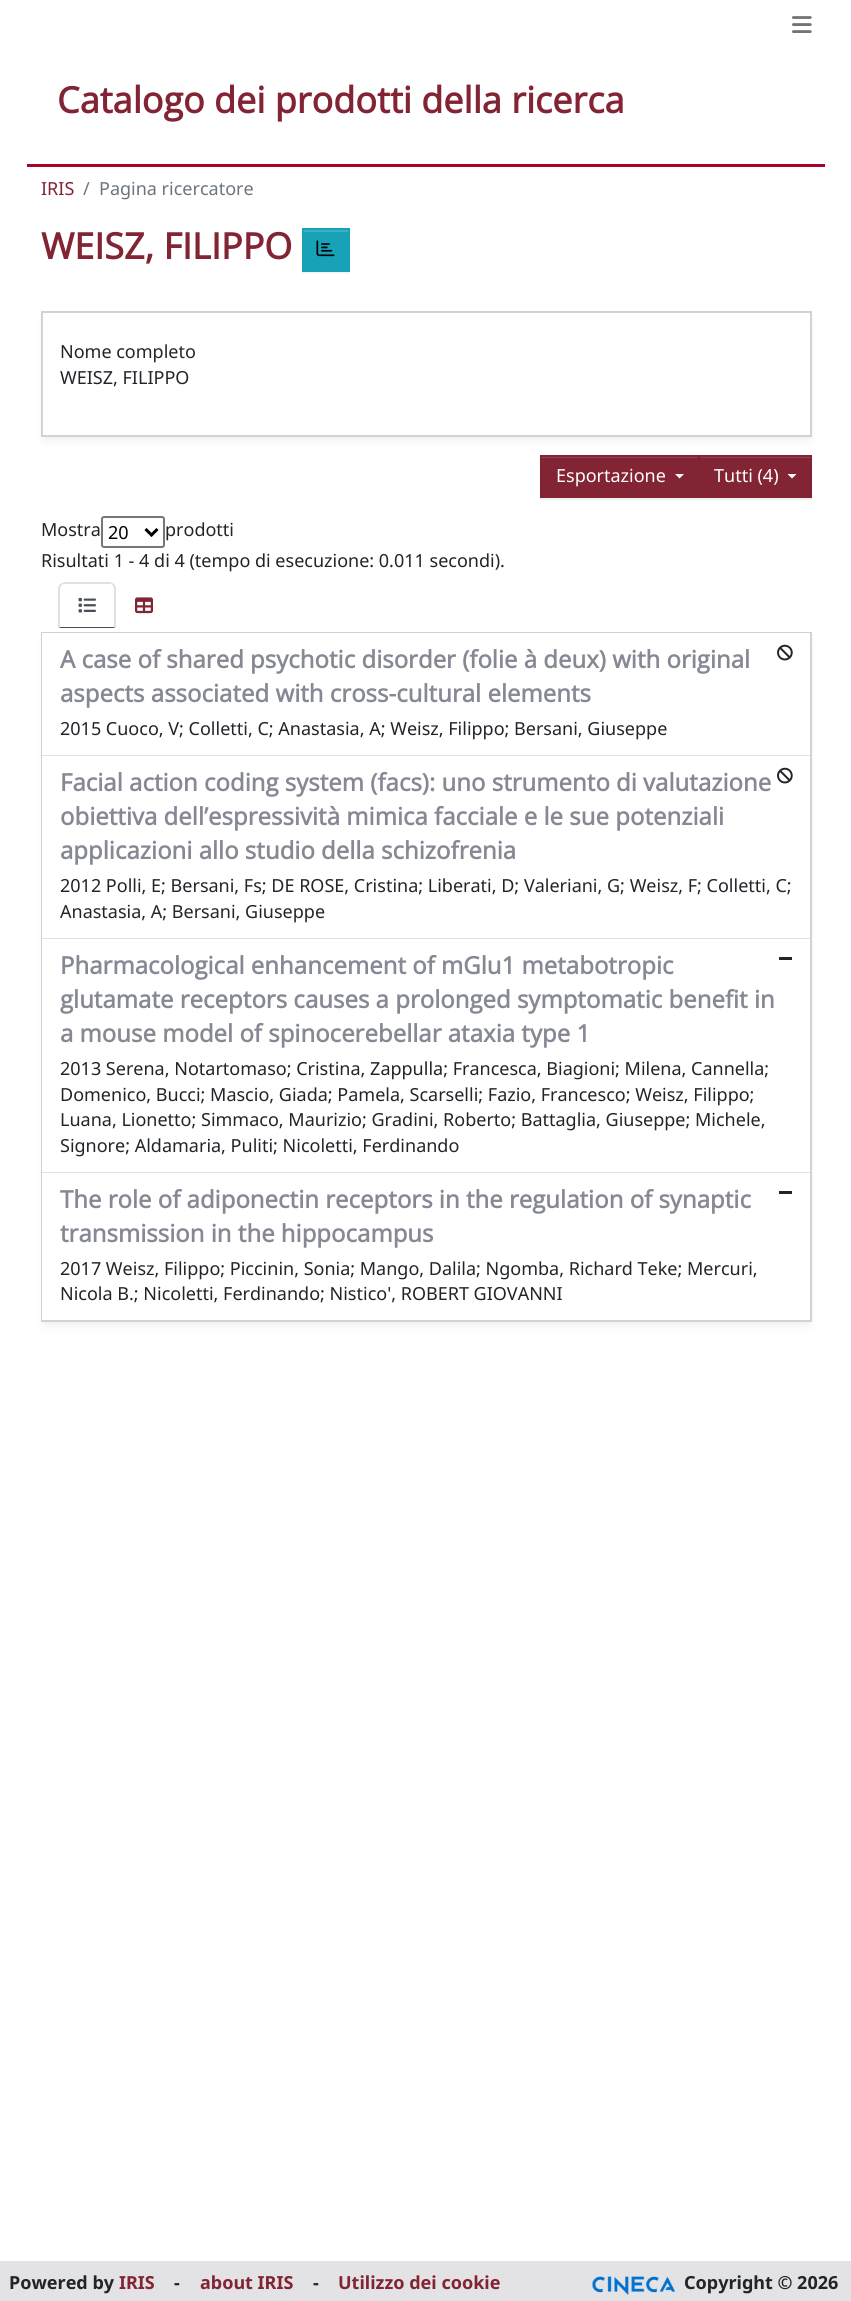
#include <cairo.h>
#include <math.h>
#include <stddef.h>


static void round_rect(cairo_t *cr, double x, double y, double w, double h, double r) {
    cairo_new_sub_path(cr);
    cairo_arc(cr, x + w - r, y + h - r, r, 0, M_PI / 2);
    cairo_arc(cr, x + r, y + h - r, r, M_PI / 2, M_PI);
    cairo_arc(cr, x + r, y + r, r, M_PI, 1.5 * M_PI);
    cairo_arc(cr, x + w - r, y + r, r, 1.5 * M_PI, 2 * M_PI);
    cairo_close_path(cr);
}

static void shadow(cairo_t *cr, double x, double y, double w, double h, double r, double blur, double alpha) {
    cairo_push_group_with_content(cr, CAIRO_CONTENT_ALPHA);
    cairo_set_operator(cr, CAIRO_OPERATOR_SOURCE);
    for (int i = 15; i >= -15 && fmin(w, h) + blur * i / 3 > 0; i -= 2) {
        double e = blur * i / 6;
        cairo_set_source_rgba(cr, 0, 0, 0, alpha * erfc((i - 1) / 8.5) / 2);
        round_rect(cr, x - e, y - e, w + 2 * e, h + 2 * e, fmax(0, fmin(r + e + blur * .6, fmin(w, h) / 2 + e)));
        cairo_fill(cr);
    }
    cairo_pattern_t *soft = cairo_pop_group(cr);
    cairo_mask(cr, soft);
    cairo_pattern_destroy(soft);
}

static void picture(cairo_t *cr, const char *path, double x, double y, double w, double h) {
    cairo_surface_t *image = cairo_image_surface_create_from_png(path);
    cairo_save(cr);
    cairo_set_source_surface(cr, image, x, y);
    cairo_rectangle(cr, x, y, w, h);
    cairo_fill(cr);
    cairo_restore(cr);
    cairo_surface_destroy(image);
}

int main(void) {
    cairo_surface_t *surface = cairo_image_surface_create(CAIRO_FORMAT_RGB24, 851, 2301);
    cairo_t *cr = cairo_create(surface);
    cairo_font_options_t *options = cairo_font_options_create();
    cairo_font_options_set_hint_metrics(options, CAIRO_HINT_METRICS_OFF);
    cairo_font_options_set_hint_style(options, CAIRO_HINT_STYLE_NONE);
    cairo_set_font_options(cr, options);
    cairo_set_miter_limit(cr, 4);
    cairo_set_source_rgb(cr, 1, 1, 1);
    cairo_paint(cr);
    picture(cr, "img1.png", 792, 16, 20, 17);
    cairo_set_source_rgb(cr, 0.663, 0.012, 0.161);
    cairo_rectangle(cr, 27, 164, 798, 3);
    cairo_fill(cr);
    cairo_select_font_face(cr, "Open Sans", CAIRO_FONT_SLANT_NORMAL, CAIRO_FONT_WEIGHT_BOLD);
    cairo_set_font_size(cr, 36);
    cairo_set_source_rgb(cr, 0.51, 0.141, 0.2);
    cairo_move_to(cr, 57, 113);
    cairo_show_text(cr, "Catalogo dei prodotti della ricerca");
    cairo_select_font_face(cr, "Noto Sans", CAIRO_FONT_SLANT_NORMAL, CAIRO_FONT_WEIGHT_NORMAL);
    cairo_set_font_size(cr, 18);
    cairo_move_to(cr, 41, 195);
    cairo_show_text(cr, "IRIS");
    cairo_set_source_rgb(cr, 0.424, 0.459, 0.49);
    cairo_move_to(cr, 83, 195);
    cairo_show_text(cr, "/");
    cairo_move_to(cr, 99, 195);
    cairo_show_text(cr, "Pagina ricercatore");
    cairo_select_font_face(cr, "Open Sans", CAIRO_FONT_SLANT_NORMAL, CAIRO_FONT_WEIGHT_BOLD);
    cairo_set_font_size(cr, 36);
    cairo_set_source_rgb(cr, 0.51, 0.141, 0.2);
    cairo_move_to(cr, 41, 259);
    cairo_show_text(cr, "WEISZ, FILIPPO");
    cairo_set_source_rgb(cr, 0, 0, 0);
    shadow(cr, 302, 230, 48, 43, 0, 1, 0.07);
    cairo_set_source_rgb(cr, 0.09, 0.635, 0.722);
    cairo_rectangle(cr, 304, 232, 44, 38);
    cairo_fill(cr);
    cairo_set_source_rgb(cr, 0.227, 0.69, 0.765);
    cairo_rectangle(cr, 303, 230, 45, 2);
    cairo_fill(cr);
    cairo_rectangle(cr, 303, 229, 46, 42);
    cairo_set_source_rgb(cr, 0.09, 0.635, 0.722);
    cairo_stroke(cr);
    picture(cr, "img2.png", 316, 240, 19, 17);
    cairo_set_source_rgb(cr, 0.933, 0.933, 0.933);
    shadow(cr, 44, 320, 765, 120, 0, 4.5, 1);
    cairo_set_source_rgb(cr, 1, 1, 1);
    cairo_rectangle(cr, 43, 315, 767, 120);
    cairo_fill(cr);
    cairo_rectangle(cr, 42, 312, 769, 124);
    cairo_set_source_rgb(cr, 0.824, 0.824, 0.824);
    cairo_stroke(cr);
    cairo_select_font_face(cr, "Noto Sans", CAIRO_FONT_SLANT_NORMAL, CAIRO_FONT_WEIGHT_NORMAL);
    cairo_set_font_size(cr, 18);
    cairo_set_source_rgb(cr, 0.129, 0.145, 0.161);
    cairo_move_to(cr, 60, 358);
    cairo_show_text(cr, "Nome completo");
    cairo_move_to(cr, 60, 384);
    cairo_show_text(cr, "WEISZ, FILIPPO");
    cairo_set_source_rgb(cr, 0, 0, 0);
    shadow(cr, 699, 456, 113, 44, 0, 1, 0.07);
    cairo_set_source_rgb(cr, 0.51, 0.141, 0.2);
    cairo_rectangle(cr, 701, 458, 109, 38);
    cairo_fill(cr);
    cairo_set_source_rgb(cr, 0.584, 0.271, 0.322);
    cairo_rectangle(cr, 701, 457, 109, 1);
    cairo_fill(cr);
    cairo_rectangle(cr, 700, 456, 111, 41);
    cairo_set_source_rgb(cr, 0.51, 0.141, 0.2);
    cairo_stroke(cr);
    cairo_set_source_rgb(cr, 0, 0, 0);
    shadow(cr, 540, 456, 159, 44, 0, 1, 0.07);
    cairo_set_source_rgb(cr, 0.51, 0.141, 0.2);
    cairo_rectangle(cr, 542, 458, 155, 38);
    cairo_fill(cr);
    cairo_set_source_rgb(cr, 0.584, 0.271, 0.322);
    cairo_rectangle(cr, 542, 457, 156, 1);
    cairo_fill(cr);
    cairo_rectangle(cr, 541, 456, 157, 41);
    cairo_set_source_rgb(cr, 0.51, 0.141, 0.2);
    cairo_stroke(cr);
    cairo_set_source_rgb(cr, 1, 1, 1);
    cairo_move_to(cr, 556, 482);
    cairo_show_text(cr, "Esportazione");
    cairo_new_path(cr);
    cairo_move_to(cr, 675, 474);
    cairo_line_to(cr, 684, 474);
    cairo_line_to(cr, 679.5, 478.5);
    cairo_close_path(cr);
    cairo_fill(cr);
    cairo_move_to(cr, 714, 482);
    cairo_show_text(cr, "Tutti (4)");
    cairo_new_path(cr);
    cairo_move_to(cr, 787.5, 474);
    cairo_line_to(cr, 796.5, 474);
    cairo_line_to(cr, 792, 478.5);
    cairo_close_path(cr);
    cairo_fill(cr);
    cairo_set_source_rgb(cr, 0.129, 0.145, 0.161);
    cairo_move_to(cr, 41, 536);
    cairo_show_text(cr, "Mostra");
    round_rect(cr, 102, 517, 62, 30, 2);
    cairo_set_source_rgb(cr, 0.463, 0.463, 0.463);
    cairo_stroke(cr);
    cairo_new_path(cr);
    cairo_move_to(cr, 145.5, 529);
    cairo_line_to(cr, 151.5, 535);
    cairo_line_to(cr, 157.5, 529);
    cairo_set_source_rgb(cr, 0, 0, 0);
    cairo_set_line_width(cr, 3);
    cairo_stroke(cr);
    cairo_move_to(cr, 108, 539);
    cairo_show_text(cr, "20");
    cairo_set_source_rgb(cr, 0.129, 0.145, 0.161);
    cairo_move_to(cr, 165, 536);
    cairo_show_text(cr, "prodotti");
    cairo_move_to(cr, 41, 567);
    cairo_show_text(cr, "Risultati 1 - 4 di 4 (tempo di esecuzione: 0.011 secondi).");
    cairo_set_source_rgb(cr, 0.871, 0.886, 0.902);
    cairo_new_path(cr);
    cairo_move_to(cr, 65, 582);
    cairo_curve_to(cr, 64, 582, 62, 583, 60, 584);
    cairo_line_to(cr, 62, 585);
    cairo_curve_to(cr, 62, 584, 64, 584, 65, 584);
    cairo_line_to(cr, 109, 584);
    cairo_curve_to(cr, 110, 584, 112, 584, 112, 585);
    cairo_line_to(cr, 114, 584);
    cairo_curve_to(cr, 112, 583, 110, 582, 109, 582);
    cairo_close_path(cr);
    cairo_fill(cr);
    cairo_new_path(cr);
    cairo_move_to(cr, 116, 628);
    cairo_line_to(cr, 114, 627);
    cairo_line_to(cr, 114, 589);
    cairo_curve_to(cr, 114, 587, 113, 586, 112, 585);
    cairo_line_to(cr, 114, 584);
    cairo_line_to(cr, 116, 587);
    cairo_close_path(cr);
    cairo_fill(cr);
    cairo_set_source_rgb(cr, 0.286, 0.314, 0.341);
    cairo_new_path(cr);
    cairo_move_to(cr, 115, 628);
    cairo_line_to(cr, 59, 628);
    cairo_line_to(cr, 60, 627);
    cairo_line_to(cr, 114, 627);
    cairo_close_path(cr);
    cairo_fill(cr);
    cairo_set_source_rgb(cr, 0.871, 0.886, 0.902);
    cairo_new_path(cr);
    cairo_move_to(cr, 58, 587);
    cairo_line_to(cr, 60, 584);
    cairo_line_to(cr, 62, 585);
    cairo_curve_to(cr, 61, 586, 60, 587, 60, 589);
    cairo_line_to(cr, 60, 627);
    cairo_line_to(cr, 58, 628);
    cairo_close_path(cr);
    cairo_fill(cr);
    picture(cr, "img3.png", 78, 597, 18, 16);
    picture(cr, "img4.png", 135, 597, 18, 17);
    cairo_set_source_rgb(cr, 0.933, 0.933, 0.933);
    shadow(cr, 44, 641, 765, 684, 0, 4.5, 1);
    cairo_rectangle(cr, 42, 633, 769, 688);
    cairo_set_source_rgb(cr, 0.824, 0.824, 0.824);
    cairo_set_line_width(cr, 2);
    cairo_stroke(cr);
    cairo_set_source_rgb(cr, 1, 1, 1);
    cairo_rectangle(cr, 42, 633, 768, 687);
    cairo_fill(cr);
    cairo_set_source_rgba(cr, 0, 0, 0, 0.12);
    cairo_rectangle(cr, 42, 755, 768, 1);
    cairo_fill(cr);
    cairo_select_font_face(cr, "Open Sans", CAIRO_FONT_SLANT_NORMAL, CAIRO_FONT_WEIGHT_BOLD);
    cairo_set_font_size(cr, 24);
    cairo_set_source_rgb(cr, 0.525, 0.533, 0.58);
    cairo_move_to(cr, 60, 668);
    cairo_show_text(cr, "A case of shared psychotic disorder (folie à deux) with original");
    cairo_move_to(cr, 60, 702);
    cairo_show_text(cr, "aspects associated with cross-cultural elements");
    picture(cr, "img5.png", 777, 644, 16, 17);
    cairo_select_font_face(cr, "Noto Sans", CAIRO_FONT_SLANT_NORMAL, CAIRO_FONT_WEIGHT_NORMAL);
    cairo_set_font_size(cr, 18);
    cairo_set_source_rgb(cr, 0.129, 0.145, 0.161);
    cairo_move_to(cr, 60, 735);
    cairo_show_text(cr, "2015 Cuoco, V; Colletti, C; Anastasia, A; Weisz, Filippo; Bersani, Giuseppe");
    cairo_set_source_rgba(cr, 0, 0, 0, 0.12);
    cairo_rectangle(cr, 42, 938, 768, 1);
    cairo_fill(cr);
    cairo_select_font_face(cr, "Open Sans", CAIRO_FONT_SLANT_NORMAL, CAIRO_FONT_WEIGHT_BOLD);
    cairo_set_font_size(cr, 24);
    cairo_set_source_rgb(cr, 0.525, 0.533, 0.58);
    cairo_move_to(cr, 60, 791);
    cairo_show_text(cr, "Facial action coding system (facs): uno strumento di valutazione");
    cairo_move_to(cr, 60, 825);
    cairo_show_text(cr, "obiettiva dell’espressività mimica facciale e le sue potenziali");
    cairo_move_to(cr, 60, 859);
    cairo_show_text(cr, "applicazioni allo studio della schizofrenia");
    picture(cr, "img5.png", 777, 767, 16, 17);
    cairo_select_font_face(cr, "Noto Sans", CAIRO_FONT_SLANT_NORMAL, CAIRO_FONT_WEIGHT_NORMAL);
    cairo_set_font_size(cr, 18);
    cairo_set_source_rgb(cr, 0.129, 0.145, 0.161);
    cairo_move_to(cr, 60, 892);
    cairo_show_text(cr, "2012 Polli, E; Bersani, Fs; DE ROSE, Cristina; Liberati, D; Valeriani, G; Weisz, F; Colletti, C;");
    cairo_move_to(cr, 60, 918);
    cairo_show_text(cr, "Anastasia, A; Bersani, Giuseppe");
    cairo_set_source_rgba(cr, 0, 0, 0, 0.12);
    cairo_rectangle(cr, 42, 1172, 768, 1);
    cairo_fill(cr);
    cairo_select_font_face(cr, "Open Sans", CAIRO_FONT_SLANT_NORMAL, CAIRO_FONT_WEIGHT_BOLD);
    cairo_set_font_size(cr, 24);
    cairo_set_source_rgb(cr, 0.525, 0.533, 0.58);
    cairo_move_to(cr, 60, 974);
    cairo_show_text(cr, "Pharmacological enhancement of mGlu1 metabotropic");
    cairo_move_to(cr, 60, 1008);
    cairo_show_text(cr, "glutamate receptors causes a prolonged symptomatic benefit in");
    cairo_move_to(cr, 60, 1042);
    cairo_show_text(cr, "a mouse model of spinocerebellar ataxia type 1");
    cairo_set_source_rgb(cr, 0.129, 0.145, 0.161);
    cairo_rectangle(cr, 779, 957, 13, 3);
    cairo_fill(cr);
    cairo_select_font_face(cr, "Noto Sans", CAIRO_FONT_SLANT_NORMAL, CAIRO_FONT_WEIGHT_NORMAL);
    cairo_set_font_size(cr, 18);
    cairo_move_to(cr, 60, 1075);
    cairo_show_text(cr, "2013 Serena, Notartomaso; Cristina, Zappulla; Francesca, Biagioni; Milena, Cannella;");
    cairo_move_to(cr, 60, 1101);
    cairo_show_text(cr, "Domenico, Bucci; Mascio, Giada; Pamela, Scarselli; Fazio, Francesco; Weisz, Filippo;");
    cairo_move_to(cr, 60, 1126);
    cairo_show_text(cr, "Luana, Lionetto; Simmaco, Maurizio; Gradini, Roberto; Battaglia, Giuseppe; Michele,");
    cairo_move_to(cr, 60, 1152);
    cairo_show_text(cr, "Signore; Aldamaria, Puliti; Nicoletti, Ferdinando");
    cairo_select_font_face(cr, "Open Sans", CAIRO_FONT_SLANT_NORMAL, CAIRO_FONT_WEIGHT_BOLD);
    cairo_set_font_size(cr, 24);
    cairo_set_source_rgb(cr, 0.525, 0.533, 0.58);
    cairo_move_to(cr, 60, 1208);
    cairo_show_text(cr, "The role of adiponectin receptors in the regulation of synaptic");
    cairo_move_to(cr, 60, 1242);
    cairo_show_text(cr, "transmission in the hippocampus");
    cairo_set_source_rgb(cr, 0.129, 0.145, 0.161);
    cairo_rectangle(cr, 779, 1191, 13, 3);
    cairo_fill(cr);
    cairo_select_font_face(cr, "Noto Sans", CAIRO_FONT_SLANT_NORMAL, CAIRO_FONT_WEIGHT_NORMAL);
    cairo_set_font_size(cr, 18);
    cairo_move_to(cr, 60, 1275);
    cairo_show_text(cr, "2017 Weisz, Filippo; Piccinin, Sonia; Mango, Dalila; Ngomba, Richard Teke; Mercuri,");
    cairo_move_to(cr, 60, 1300);
    cairo_show_text(cr, "Nicola B.; Nicoletti, Ferdinando; Nistico', ROBERT GIOVANNI");
    cairo_set_source_rgb(cr, 0.89, 0.89, 0.898);
    cairo_rectangle(cr, 0, 2261, 851, 40);
    cairo_fill(cr);
    cairo_select_font_face(cr, "Noto Sans", CAIRO_FONT_SLANT_NORMAL, CAIRO_FONT_WEIGHT_BOLD);
    cairo_set_source_rgb(cr, 0.129, 0.145, 0.161);
    cairo_move_to(cr, 9, 2289);
    cairo_show_text(cr, "Powered by");
    cairo_set_source_rgb(cr, 0.51, 0.141, 0.2);
    cairo_move_to(cr, 119, 2289);
    cairo_show_text(cr, "IRIS");
    cairo_set_source_rgb(cr, 0.129, 0.145, 0.161);
    cairo_move_to(cr, 174, 2289);
    cairo_show_text(cr, "-");
    cairo_set_source_rgb(cr, 0.51, 0.141, 0.2);
    cairo_move_to(cr, 200, 2289);
    cairo_show_text(cr, "about IRIS");
    cairo_set_source_rgb(cr, 0.129, 0.145, 0.161);
    cairo_move_to(cr, 313, 2289);
    cairo_show_text(cr, "-");
    cairo_set_source_rgb(cr, 0.51, 0.141, 0.2);
    cairo_move_to(cr, 338, 2289);
    cairo_show_text(cr, "Utilizzo dei cookie");
    picture(cr, "img6.png", 592, 2276, 83, 19);
    cairo_set_source_rgb(cr, 0.129, 0.145, 0.161);
    cairo_move_to(cr, 684, 2289);
    cairo_show_text(cr, "Copyright © 2026");
    cairo_surface_write_to_png(surface, "page.png");
    cairo_font_options_destroy(options);
    cairo_destroy(cr);
    cairo_surface_destroy(surface);
    return 0;
}
